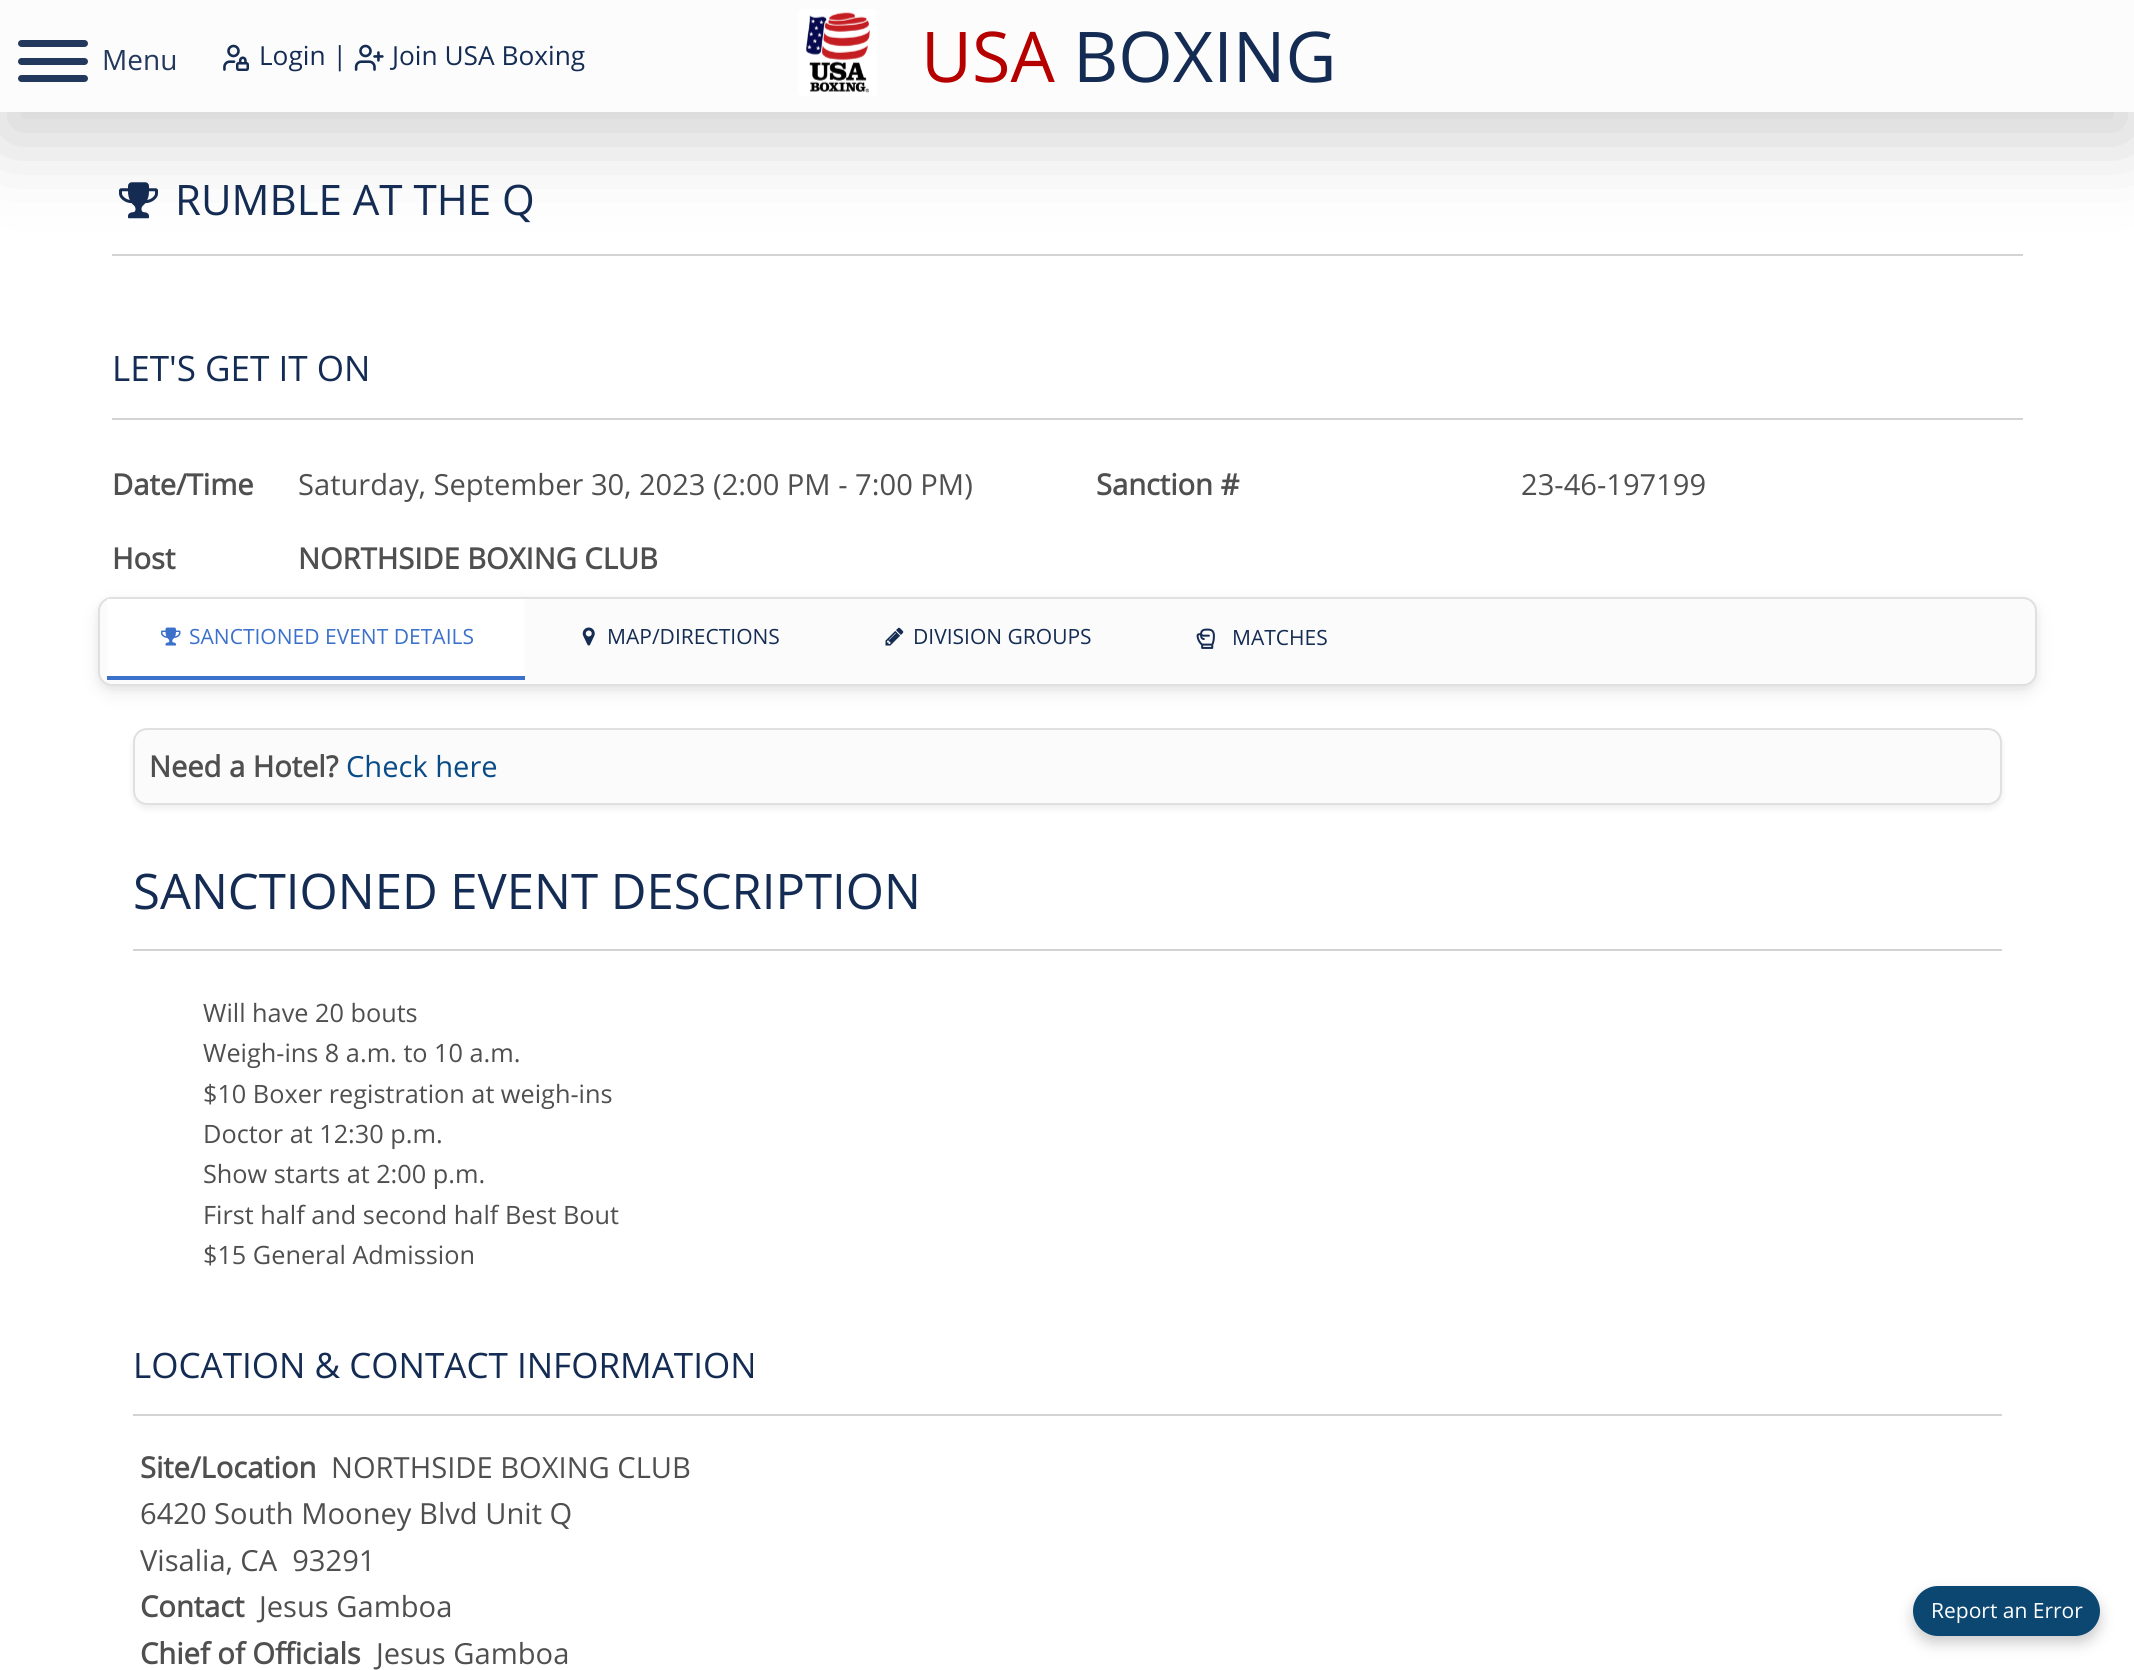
#include <cairo.h>
#include <math.h>
#include <stddef.h>


static void round_rect(cairo_t *cr, double x, double y, double w, double h, double r) {
    cairo_new_sub_path(cr);
    cairo_arc(cr, x + w - r, y + h - r, r, 0, M_PI / 2);
    cairo_arc(cr, x + r, y + h - r, r, M_PI / 2, M_PI);
    cairo_arc(cr, x + r, y + r, r, M_PI, 1.5 * M_PI);
    cairo_arc(cr, x + w - r, y + r, r, 1.5 * M_PI, 2 * M_PI);
    cairo_close_path(cr);
}

static void shadow(cairo_t *cr, double x, double y, double w, double h, double r, double blur, double alpha) {
    cairo_push_group_with_content(cr, CAIRO_CONTENT_ALPHA);
    cairo_set_operator(cr, CAIRO_OPERATOR_SOURCE);
    for (int i = 15; i >= -15 && fmin(w, h) + blur * i / 3 > 0; i -= 2) {
        double e = blur * i / 6;
        cairo_set_source_rgba(cr, 0, 0, 0, alpha * erfc((i - 1) / 8.5) / 2);
        round_rect(cr, x - e, y - e, w + 2 * e, h + 2 * e, fmax(0, fmin(r + e + blur * .6, fmin(w, h) / 2 + e)));
        cairo_fill(cr);
    }
    cairo_pattern_t *soft = cairo_pop_group(cr);
    cairo_mask(cr, soft);
    cairo_pattern_destroy(soft);
}

static void picture(cairo_t *cr, const char *path, double x, double y, double w, double h) {
    cairo_surface_t *image = cairo_image_surface_create_from_png(path);
    cairo_save(cr);
    cairo_set_source_surface(cr, image, x, y);
    cairo_rectangle(cr, x, y, w, h);
    cairo_fill(cr);
    cairo_restore(cr);
    cairo_surface_destroy(image);
}

int main(void) {
    cairo_surface_t *surface = cairo_image_surface_create(CAIRO_FORMAT_RGB24, 2134, 1670);
    cairo_t *cr = cairo_create(surface);
    cairo_font_options_t *options = cairo_font_options_create();
    cairo_font_options_set_hint_metrics(options, CAIRO_HINT_METRICS_OFF);
    cairo_font_options_set_hint_style(options, CAIRO_HINT_STYLE_NONE);
    cairo_set_font_options(cr, options);
    cairo_set_miter_limit(cr, 4);
    cairo_set_source_rgb(cr, 1, 1, 1);
    cairo_paint(cr);
    picture(cr, "img4.png", 119, 182, 39, 37);
    cairo_set_source_rgb(cr, 0.827, 0.827, 0.827);
    cairo_rectangle(cr, 112, 254, 1911, 2);
    cairo_fill(cr);
    cairo_set_source_rgb(cr, 0, 0, 0);
    shadow(cr, 0, 28, 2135, 112, 0, 42, 0.18);
    cairo_set_source_rgb(cr, 0.988, 0.988, 0.988);
    cairo_rectangle(cr, 0, 0, 2134, 112);
    cairo_fill(cr);
    cairo_set_source_rgb(cr, 0.137, 0.22, 0.365);
    round_rect(cr, 18, 40, 70, 7, 3.5);
    cairo_fill(cr);
    round_rect(cr, 18, 58, 70, 7, 3.5);
    cairo_fill(cr);
    round_rect(cr, 18, 75, 70, 7, 3.5);
    cairo_fill(cr);
    cairo_select_font_face(cr, "Open Sans", CAIRO_FONT_SLANT_NORMAL, CAIRO_FONT_WEIGHT_NORMAL);
    cairo_set_font_size(cr, 28);
    cairo_move_to(cr, 102, 70);
    cairo_show_text(cr, "Menu");
    picture(cr, "img1.png", 223, 44, 26, 27);
    cairo_set_font_size(cr, 26.25);
    cairo_set_source_rgb(cr, 0.082, 0.173, 0.325);
    cairo_move_to(cr, 259, 65);
    cairo_show_text(cr, "Login |");
    picture(cr, "img2.png", 354, 44, 30, 27);
    cairo_move_to(cr, 392, 65);
    cairo_show_text(cr, "Join USA Boxing");
    cairo_set_source_rgb(cr, 1, 1, 1);
    round_rect(cr, 798, 9, 79, 87, 4);
    cairo_fill(cr);
    picture(cr, "img3.png", 806, 12, 64, 81);
    cairo_set_font_size(cr, 70);
    cairo_set_source_rgb(cr, 0.714, 0, 0);
    cairo_move_to(cr, 921, 82);
    cairo_show_text(cr, "USA");
    cairo_set_source_rgb(cr, 0.082, 0.173, 0.325);
    cairo_move_to(cr, 1073, 82);
    cairo_show_text(cr, "BOXING");
    cairo_set_font_size(cr, 42);
    cairo_move_to(cr, 175, 215);
    cairo_show_text(cr, "RUMBLE AT THE Q");
    cairo_set_font_size(cr, 35);
    cairo_move_to(cr, 112, 381);
    cairo_show_text(cr, "LET'S GET IT ON");
    cairo_set_source_rgb(cr, 0.827, 0.827, 0.827);
    cairo_rectangle(cr, 112, 418, 1911, 2);
    cairo_fill(cr);
    cairo_select_font_face(cr, "Open Sans", CAIRO_FONT_SLANT_NORMAL, CAIRO_FONT_WEIGHT_BOLD);
    cairo_set_font_size(cr, 29.1);
    cairo_set_source_rgb(cr, 0.31, 0.31, 0.31);
    cairo_move_to(cr, 112, 495);
    cairo_show_text(cr, "Date/Time");
    cairo_select_font_face(cr, "Open Sans", CAIRO_FONT_SLANT_NORMAL, CAIRO_FONT_WEIGHT_NORMAL);
    cairo_move_to(cr, 298, 495);
    cairo_show_text(cr, "Saturday, September 30, 2023 (2:00 PM - 7:00 PM)");
    cairo_select_font_face(cr, "Open Sans", CAIRO_FONT_SLANT_NORMAL, CAIRO_FONT_WEIGHT_BOLD);
    cairo_move_to(cr, 112, 569);
    cairo_show_text(cr, "Host");
    cairo_move_to(cr, 298, 569);
    cairo_show_text(cr, "NORTHSIDE BOXING CLUB");
    cairo_move_to(cr, 1096, 495);
    cairo_show_text(cr, "Sanction #");
    cairo_select_font_face(cr, "Open Sans", CAIRO_FONT_SLANT_NORMAL, CAIRO_FONT_WEIGHT_NORMAL);
    cairo_move_to(cr, 1521, 495);
    cairo_show_text(cr, "23-46-197199");
    cairo_set_source_rgb(cr, 0, 0, 0);
    shadow(cr, 98, 600, 1939, 90, 14, 3.5, 0.05);
    shadow(cr, 98, 604, 1939, 89, 14, 10.5, 0.07);
    cairo_set_source_rgb(cr, 0.984, 0.984, 0.984);
    round_rect(cr, 99, 598, 1937, 87, 13);
    cairo_fill_preserve(cr);
    cairo_set_source_rgb(cr, 0.878, 0.878, 0.878);
    cairo_stroke(cr);
    cairo_set_source_rgb(cr, 1, 1, 1);
    cairo_rectangle(cr, 107, 599, 418, 77);
    cairo_fill(cr);
    cairo_set_source_rgb(cr, 0.231, 0.443, 0.792);
    cairo_rectangle(cr, 107, 676, 418, 4);
    cairo_fill(cr);
    picture(cr, "img5.png", 161, 627, 20, 19);
    cairo_set_font_size(cr, 21);
    cairo_move_to(cr, 189, 644);
    cairo_show_text(cr, "SANCTIONED EVENT DETAILS");
    picture(cr, "img6.png", 582, 627, 13, 19);
    cairo_set_source_rgb(cr, 0.082, 0.173, 0.325);
    cairo_move_to(cr, 607, 644);
    cairo_show_text(cr, "MAP/DIRECTIONS");
    picture(cr, "img7.png", 885, 627, 19, 19);
    cairo_move_to(cr, 913, 644);
    cairo_show_text(cr, "DIVISION GROUPS");
    picture(cr, "img8.png", 1196, 628, 19, 21);
    cairo_move_to(cr, 1232, 645);
    cairo_show_text(cr, "MATCHES");
    cairo_set_source_rgb(cr, 0, 0, 0);
    shadow(cr, 133, 732, 1869, 77, 14, 3.5, 0.07);
    cairo_set_source_rgb(cr, 0.984, 0.984, 0.984);
    round_rect(cr, 134, 729, 1867, 75, 13);
    cairo_fill_preserve(cr);
    cairo_set_source_rgb(cr, 0.878, 0.878, 0.878);
    cairo_stroke(cr);
    cairo_select_font_face(cr, "Open Sans", CAIRO_FONT_SLANT_NORMAL, CAIRO_FONT_WEIGHT_BOLD);
    cairo_set_font_size(cr, 29.1);
    cairo_set_source_rgb(cr, 0.31, 0.31, 0.31);
    cairo_move_to(cr, 149, 777);
    cairo_show_text(cr, "Need a Hotel?");
    cairo_select_font_face(cr, "Open Sans", CAIRO_FONT_SLANT_NORMAL, CAIRO_FONT_WEIGHT_NORMAL);
    cairo_set_source_rgb(cr, 0.035, 0.294, 0.529);
    cairo_move_to(cr, 346, 777);
    cairo_show_text(cr, "Check here");
    cairo_set_font_size(cr, 49);
    cairo_set_source_rgb(cr, 0.082, 0.173, 0.325);
    cairo_move_to(cr, 133, 909);
    cairo_show_text(cr, "SANCTIONED EVENT DESCRIPTION");
    cairo_set_source_rgb(cr, 0.827, 0.827, 0.827);
    cairo_rectangle(cr, 133, 949, 1869, 2);
    cairo_fill(cr);
    cairo_set_font_size(cr, 25.25);
    cairo_set_source_rgb(cr, 0.31, 0.31, 0.31);
    cairo_move_to(cr, 203, 1022);
    cairo_show_text(cr, "Will have 20 bouts");
    cairo_move_to(cr, 203, 1062);
    cairo_show_text(cr, "Weigh-ins 8 a.m. to 10 a.m.");
    cairo_move_to(cr, 203, 1103);
    cairo_show_text(cr, "$10 Boxer registration at weigh-ins");
    cairo_move_to(cr, 203, 1143);
    cairo_show_text(cr, "Doctor at 12:30 p.m.");
    cairo_move_to(cr, 203, 1183);
    cairo_show_text(cr, "Show starts at 2:00 p.m.");
    cairo_move_to(cr, 203, 1224);
    cairo_show_text(cr, "First half and second half Best Bout");
    cairo_move_to(cr, 203, 1264);
    cairo_show_text(cr, "$15 General Admission");
    cairo_set_font_size(cr, 35);
    cairo_set_source_rgb(cr, 0.082, 0.173, 0.325);
    cairo_move_to(cr, 133, 1378);
    cairo_show_text(cr, "LOCATION & CONTACT INFORMATION");
    cairo_set_source_rgb(cr, 0.827, 0.827, 0.827);
    cairo_rectangle(cr, 133, 1414, 1869, 2);
    cairo_fill(cr);
    cairo_select_font_face(cr, "Open Sans", CAIRO_FONT_SLANT_NORMAL, CAIRO_FONT_WEIGHT_BOLD);
    cairo_set_font_size(cr, 29.1);
    cairo_set_source_rgb(cr, 0.31, 0.31, 0.31);
    cairo_move_to(cr, 140, 1478);
    cairo_show_text(cr, "Site/Location");
    cairo_select_font_face(cr, "Open Sans", CAIRO_FONT_SLANT_NORMAL, CAIRO_FONT_WEIGHT_NORMAL);
    cairo_move_to(cr, 331, 1478);
    cairo_show_text(cr, "NORTHSIDE BOXING CLUB");
    cairo_move_to(cr, 140, 1524);
    cairo_show_text(cr, "6420 South Mooney Blvd Unit Q");
    cairo_move_to(cr, 140, 1571);
    cairo_show_text(cr, "Visalia, CA  93291");
    cairo_select_font_face(cr, "Open Sans", CAIRO_FONT_SLANT_NORMAL, CAIRO_FONT_WEIGHT_BOLD);
    cairo_move_to(cr, 140, 1617);
    cairo_show_text(cr, "Contact");
    cairo_select_font_face(cr, "Open Sans", CAIRO_FONT_SLANT_NORMAL, CAIRO_FONT_WEIGHT_NORMAL);
    cairo_move_to(cr, 259, 1617);
    cairo_show_text(cr, "Jesus Gamboa");
    cairo_select_font_face(cr, "Open Sans", CAIRO_FONT_SLANT_NORMAL, CAIRO_FONT_WEIGHT_BOLD);
    cairo_move_to(cr, 140, 1664);
    cairo_show_text(cr, "Chief of Officials");
    cairo_select_font_face(cr, "Open Sans", CAIRO_FONT_SLANT_NORMAL, CAIRO_FONT_WEIGHT_NORMAL);
    cairo_move_to(cr, 376, 1664);
    cairo_show_text(cr, "Jesus Gamboa");
    cairo_set_source_rgb(cr, 0, 0, 0);
    shadow(cr, 1913, 1593, 187, 50, 25, 7, 0.2);
    cairo_set_source_rgb(cr, 0.043, 0.278, 0.443);
    round_rect(cr, 1913, 1586, 187, 50, 25);
    cairo_fill(cr);
    cairo_set_font_size(cr, 21);
    cairo_set_source_rgb(cr, 1, 1, 1);
    cairo_move_to(cr, 1931, 1618);
    cairo_show_text(cr, "Report an Error");
    cairo_surface_write_to_png(surface, "page.png");
    cairo_font_options_destroy(options);
    cairo_destroy(cr);
    cairo_surface_destroy(surface);
    return 0;
}
